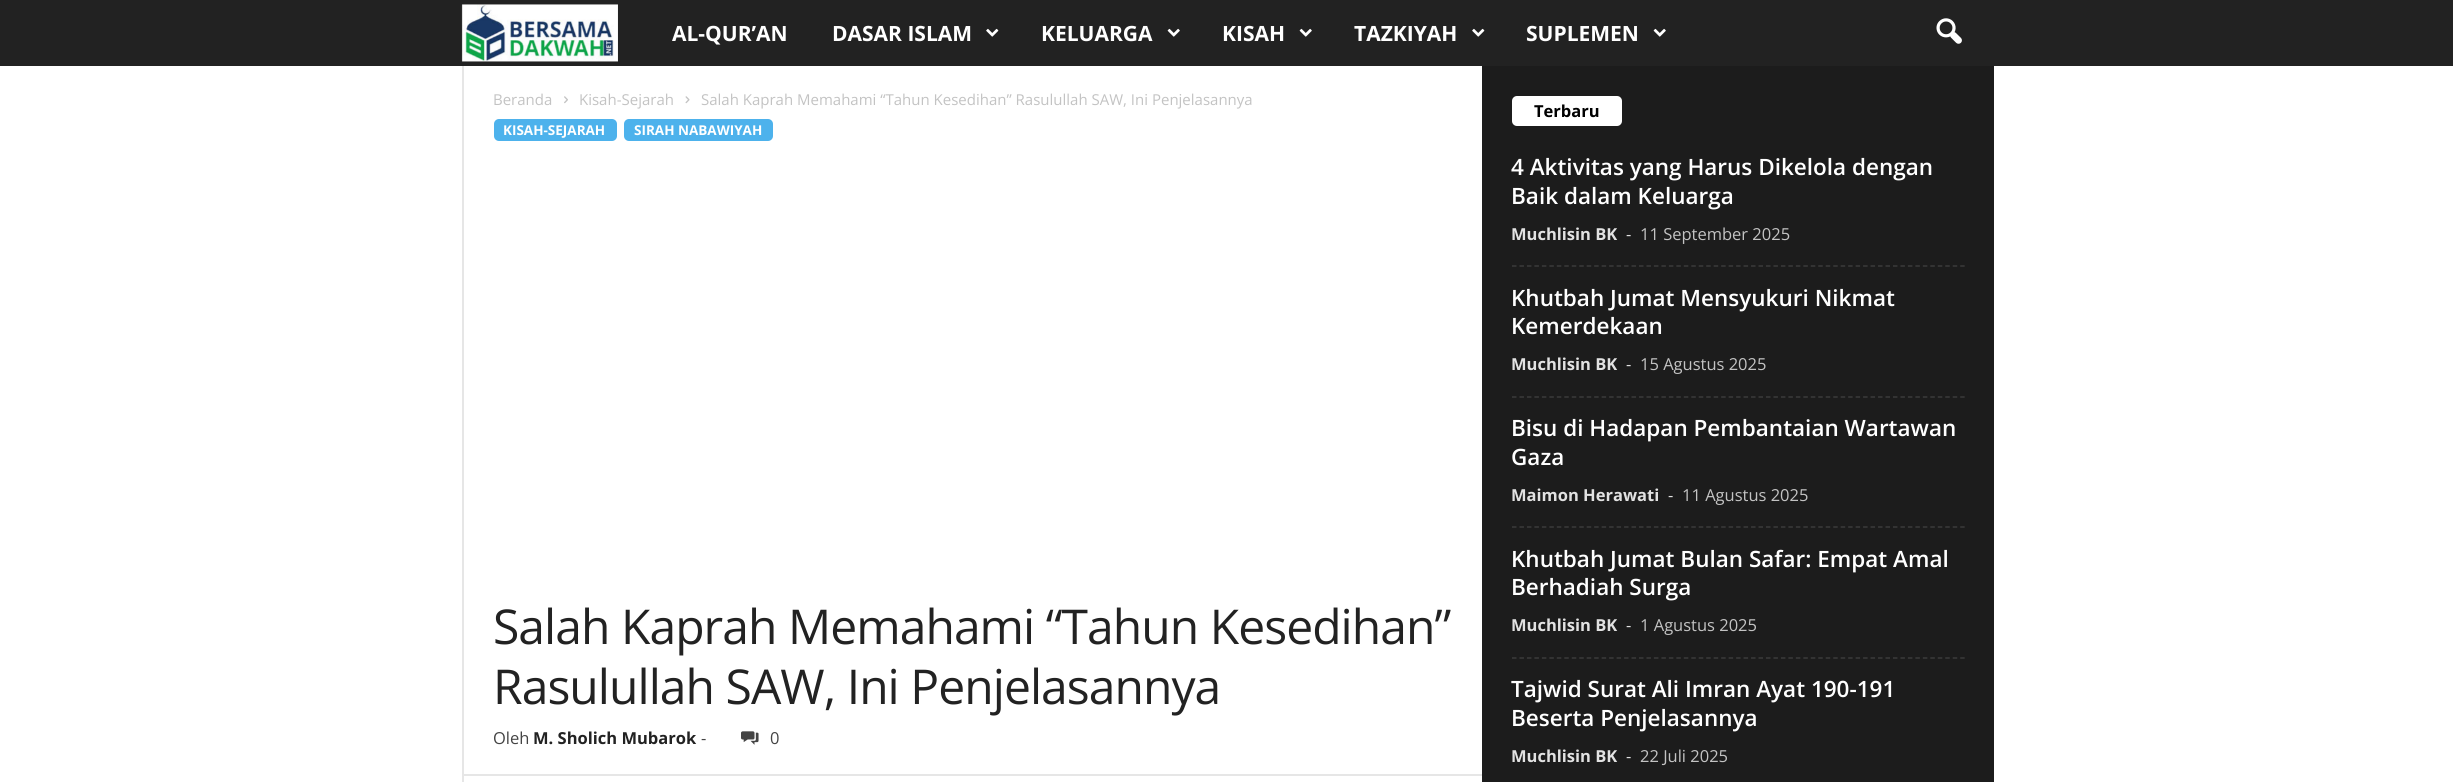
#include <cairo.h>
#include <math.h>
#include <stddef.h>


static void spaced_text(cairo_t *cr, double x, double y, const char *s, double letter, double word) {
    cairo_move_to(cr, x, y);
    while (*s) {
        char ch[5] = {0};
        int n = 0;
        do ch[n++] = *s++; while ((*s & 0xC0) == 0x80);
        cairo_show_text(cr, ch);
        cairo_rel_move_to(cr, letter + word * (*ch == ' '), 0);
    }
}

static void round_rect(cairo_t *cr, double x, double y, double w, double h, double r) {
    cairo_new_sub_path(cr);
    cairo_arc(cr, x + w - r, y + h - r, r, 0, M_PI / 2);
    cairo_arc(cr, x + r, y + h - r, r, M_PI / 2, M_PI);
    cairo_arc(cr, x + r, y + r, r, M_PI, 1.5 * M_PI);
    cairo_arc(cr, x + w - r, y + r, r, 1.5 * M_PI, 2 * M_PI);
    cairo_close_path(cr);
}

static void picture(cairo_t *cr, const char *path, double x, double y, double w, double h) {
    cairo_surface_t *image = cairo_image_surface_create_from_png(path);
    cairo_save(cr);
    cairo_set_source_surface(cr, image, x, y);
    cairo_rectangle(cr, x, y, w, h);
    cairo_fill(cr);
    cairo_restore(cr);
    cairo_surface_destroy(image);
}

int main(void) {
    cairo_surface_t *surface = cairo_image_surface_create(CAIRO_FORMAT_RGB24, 2453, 782);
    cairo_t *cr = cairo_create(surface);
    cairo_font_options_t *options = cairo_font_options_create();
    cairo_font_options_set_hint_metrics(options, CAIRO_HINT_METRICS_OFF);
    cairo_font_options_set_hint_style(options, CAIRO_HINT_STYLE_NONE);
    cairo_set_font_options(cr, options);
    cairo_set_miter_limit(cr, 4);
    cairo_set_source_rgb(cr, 1, 1, 1);
    cairo_paint(cr);
    cairo_set_source_rgb(cr, 0.133, 0.133, 0.133);
    cairo_rectangle(cr, 0, 0, 2453, 66);
    cairo_fill(cr);
    picture(cr, "img1.png", 461, 4, 157, 58);
    cairo_select_font_face(cr, "Open Sans", CAIRO_FONT_SLANT_NORMAL, CAIRO_FONT_WEIGHT_BOLD);
    cairo_set_font_size(cr, 21);
    cairo_set_source_rgb(cr, 1, 1, 1);
    cairo_move_to(cr, 672, 41);
    cairo_show_text(cr, "AL-QUR’AN");
    cairo_move_to(cr, 832, 41);
    cairo_show_text(cr, "DASAR ISLAM");
    picture(cr, "img2.png", 986, 28, 13, 9);
    cairo_move_to(cr, 1041, 41);
    cairo_show_text(cr, "KELUARGA");
    picture(cr, "img3.png", 1167, 28, 13, 9);
    cairo_move_to(cr, 1222, 41);
    cairo_show_text(cr, "KISAH");
    picture(cr, "img3.png", 1299, 28, 13, 9);
    cairo_move_to(cr, 1354, 41);
    cairo_show_text(cr, "TAZKIYAH");
    picture(cr, "img2.png", 1472, 28, 13, 9);
    cairo_move_to(cr, 1526, 41);
    cairo_show_text(cr, "SUPLEMEN");
    picture(cr, "img3.png", 1653, 28, 13, 9);
    picture(cr, "img4.png", 1936, 18, 26, 26);
    cairo_set_source_rgb(cr, 0.902, 0.902, 0.902);
    cairo_rectangle(cr, 462, 66, 2, 716);
    cairo_fill(cr);
    cairo_select_font_face(cr, "Open Sans", CAIRO_FONT_SLANT_NORMAL, CAIRO_FONT_WEIGHT_NORMAL);
    cairo_set_font_size(cr, 15);
    cairo_set_source_rgb(cr, 0.765, 0.765, 0.765);
    cairo_move_to(cr, 493, 105);
    cairo_show_text(cr, "Beranda");
    picture(cr, "img5.png", 564, 96, 4, 8);
    cairo_move_to(cr, 579, 105);
    cairo_show_text(cr, "Kisah-Sejarah");
    picture(cr, "img6.png", 685, 96, 5, 8);
    cairo_move_to(cr, 701, 105);
    cairo_show_text(cr, "Salah Kaprah Memahami “Tahun Kesedihan” Rasulullah SAW, Ini Penjelasannya");
    cairo_set_source_rgb(cr, 0.302, 0.698, 0.925);
    round_rect(cr, 494, 119, 123, 22, 5);
    cairo_fill(cr);
    cairo_select_font_face(cr, "Open Sans", CAIRO_FONT_SLANT_NORMAL, CAIRO_FONT_WEIGHT_BOLD);
    cairo_set_font_size(cr, 13.5);
    cairo_set_source_rgb(cr, 1, 1, 1);
    cairo_move_to(cr, 503, 135);
    cairo_show_text(cr, "KISAH-SEJARAH");
    cairo_set_source_rgb(cr, 0.302, 0.698, 0.925);
    round_rect(cr, 624, 119, 149, 22, 5);
    cairo_fill(cr);
    cairo_set_source_rgb(cr, 1, 1, 1);
    cairo_move_to(cr, 634, 135);
    cairo_show_text(cr, "SIRAH NABAWIYAH");
    cairo_select_font_face(cr, "Open Sans", CAIRO_FONT_SLANT_NORMAL, CAIRO_FONT_WEIGHT_NORMAL);
    cairo_set_font_size(cr, 48);
    cairo_set_source_rgb(cr, 0.133, 0.133, 0.133);
    spaced_text(cr, 493, 644, "Salah Kaprah Memahami “Tahun Kesedihan”", -0.95, 0);
    spaced_text(cr, 493, 704, "Rasulullah SAW, Ini Penjelasannya", -0.95, 0);
    cairo_set_font_size(cr, 16.5);
    cairo_set_source_rgb(cr, 0.267, 0.267, 0.267);
    cairo_move_to(cr, 493, 744);
    cairo_show_text(cr, "Oleh");
    cairo_select_font_face(cr, "Open Sans", CAIRO_FONT_SLANT_NORMAL, CAIRO_FONT_WEIGHT_BOLD);
    cairo_set_source_rgb(cr, 0.133, 0.133, 0.133);
    cairo_move_to(cr, 533, 744);
    cairo_show_text(cr, "M. Sholich Mubarok");
    cairo_select_font_face(cr, "Open Sans", CAIRO_FONT_SLANT_NORMAL, CAIRO_FONT_WEIGHT_NORMAL);
    cairo_set_source_rgb(cr, 0.267, 0.267, 0.267);
    cairo_move_to(cr, 701, 744);
    cairo_show_text(cr, "-");
    picture(cr, "img7.png", 741, 731, 18, 14);
    cairo_move_to(cr, 770, 744);
    cairo_show_text(cr, "0");
    cairo_set_source_rgb(cr, 0.902, 0.902, 0.902);
    cairo_rectangle(cr, 464, 774, 1018, 2);
    cairo_fill(cr);
    cairo_set_source_rgb(cr, 0.11, 0.11, 0.11);
    cairo_rectangle(cr, 1482, 66, 512, 716);
    cairo_fill(cr);
    cairo_set_source_rgb(cr, 1, 1, 1);
    round_rect(cr, 1512, 96, 110, 30, 5);
    cairo_fill(cr);
    cairo_select_font_face(cr, "Open Sans", CAIRO_FONT_SLANT_NORMAL, CAIRO_FONT_WEIGHT_BOLD);
    cairo_set_source_rgb(cr, 0, 0, 0);
    cairo_move_to(cr, 1534, 117);
    cairo_show_text(cr, "Terbaru");
    cairo_new_path(cr);
    cairo_move_to(cr, 1512, 266);
    cairo_line_to(cr, 1965, 266);
    cairo_set_source_rgb(cr, 0.227, 0.227, 0.227);
    cairo_set_line_width(cr, 1.5);
    cairo_set_dash(cr, (double[]){4.5, 2.97}, 2, 0);
    cairo_stroke(cr);
    cairo_select_font_face(cr, "Open Sans SemiBold", CAIRO_FONT_SLANT_NORMAL, CAIRO_FONT_WEIGHT_NORMAL);
    cairo_set_font_size(cr, 22.5);
    cairo_set_source_rgb(cr, 1, 1, 1);
    cairo_move_to(cr, 1511, 175);
    cairo_show_text(cr, "4 Aktivitas yang Harus Dikelola dengan");
    cairo_move_to(cr, 1511, 204);
    cairo_show_text(cr, "Baik dalam Keluarga");
    cairo_select_font_face(cr, "Open Sans", CAIRO_FONT_SLANT_NORMAL, CAIRO_FONT_WEIGHT_BOLD);
    cairo_set_font_size(cr, 16.5);
    cairo_set_source_rgb(cr, 0.886, 0.886, 0.886);
    cairo_move_to(cr, 1511, 240);
    cairo_show_text(cr, "Muchlisin BK");
    cairo_select_font_face(cr, "Open Sans", CAIRO_FONT_SLANT_NORMAL, CAIRO_FONT_WEIGHT_NORMAL);
    cairo_move_to(cr, 1626, 240);
    cairo_show_text(cr, "-");
    cairo_set_source_rgb(cr, 0.765, 0.765, 0.765);
    cairo_move_to(cr, 1640, 240);
    cairo_show_text(cr, "11 September 2025");
    cairo_new_path(cr);
    cairo_move_to(cr, 1512, 397);
    cairo_line_to(cr, 1965, 397);
    cairo_set_source_rgb(cr, 0.227, 0.227, 0.227);
    cairo_stroke(cr);
    cairo_select_font_face(cr, "Open Sans SemiBold", CAIRO_FONT_SLANT_NORMAL, CAIRO_FONT_WEIGHT_NORMAL);
    cairo_set_font_size(cr, 22.5);
    cairo_set_source_rgb(cr, 1, 1, 1);
    cairo_move_to(cr, 1511, 306);
    cairo_show_text(cr, "Khutbah Jumat Mensyukuri Nikmat");
    cairo_move_to(cr, 1511, 334);
    cairo_show_text(cr, "Kemerdekaan");
    cairo_select_font_face(cr, "Open Sans", CAIRO_FONT_SLANT_NORMAL, CAIRO_FONT_WEIGHT_BOLD);
    cairo_set_font_size(cr, 16.5);
    cairo_set_source_rgb(cr, 0.886, 0.886, 0.886);
    cairo_move_to(cr, 1511, 370);
    cairo_show_text(cr, "Muchlisin BK");
    cairo_select_font_face(cr, "Open Sans", CAIRO_FONT_SLANT_NORMAL, CAIRO_FONT_WEIGHT_NORMAL);
    cairo_move_to(cr, 1626, 370);
    cairo_show_text(cr, "-");
    cairo_set_source_rgb(cr, 0.765, 0.765, 0.765);
    cairo_move_to(cr, 1640, 370);
    cairo_show_text(cr, "15 Agustus 2025");
    cairo_new_path(cr);
    cairo_move_to(cr, 1512, 527);
    cairo_line_to(cr, 1965, 527);
    cairo_set_source_rgb(cr, 0.227, 0.227, 0.227);
    cairo_stroke(cr);
    cairo_select_font_face(cr, "Open Sans SemiBold", CAIRO_FONT_SLANT_NORMAL, CAIRO_FONT_WEIGHT_NORMAL);
    cairo_set_font_size(cr, 22.5);
    cairo_set_source_rgb(cr, 1, 1, 1);
    cairo_move_to(cr, 1511, 436);
    cairo_show_text(cr, "Bisu di Hadapan Pembantaian Wartawan");
    cairo_move_to(cr, 1511, 465);
    cairo_show_text(cr, "Gaza");
    cairo_select_font_face(cr, "Open Sans", CAIRO_FONT_SLANT_NORMAL, CAIRO_FONT_WEIGHT_BOLD);
    cairo_set_font_size(cr, 16.5);
    cairo_set_source_rgb(cr, 0.886, 0.886, 0.886);
    cairo_move_to(cr, 1511, 501);
    cairo_show_text(cr, "Maimon Herawati");
    cairo_select_font_face(cr, "Open Sans", CAIRO_FONT_SLANT_NORMAL, CAIRO_FONT_WEIGHT_NORMAL);
    cairo_move_to(cr, 1668, 501);
    cairo_show_text(cr, "-");
    cairo_set_source_rgb(cr, 0.765, 0.765, 0.765);
    cairo_move_to(cr, 1682, 501);
    cairo_show_text(cr, "11 Agustus 2025");
    cairo_new_path(cr);
    cairo_move_to(cr, 1512, 658);
    cairo_line_to(cr, 1965, 658);
    cairo_set_source_rgb(cr, 0.227, 0.227, 0.227);
    cairo_stroke(cr);
    cairo_select_font_face(cr, "Open Sans SemiBold", CAIRO_FONT_SLANT_NORMAL, CAIRO_FONT_WEIGHT_NORMAL);
    cairo_set_font_size(cr, 22.5);
    cairo_set_source_rgb(cr, 1, 1, 1);
    cairo_move_to(cr, 1511, 567);
    cairo_show_text(cr, "Khutbah Jumat Bulan Safar: Empat Amal");
    cairo_move_to(cr, 1511, 595);
    cairo_show_text(cr, "Berhadiah Surga");
    cairo_select_font_face(cr, "Open Sans", CAIRO_FONT_SLANT_NORMAL, CAIRO_FONT_WEIGHT_BOLD);
    cairo_set_font_size(cr, 16.5);
    cairo_set_source_rgb(cr, 0.886, 0.886, 0.886);
    cairo_move_to(cr, 1511, 631);
    cairo_show_text(cr, "Muchlisin BK");
    cairo_select_font_face(cr, "Open Sans", CAIRO_FONT_SLANT_NORMAL, CAIRO_FONT_WEIGHT_NORMAL);
    cairo_move_to(cr, 1626, 631);
    cairo_show_text(cr, "-");
    cairo_set_source_rgb(cr, 0.765, 0.765, 0.765);
    cairo_move_to(cr, 1640, 631);
    cairo_show_text(cr, "1 Agustus 2025");
    cairo_select_font_face(cr, "Open Sans SemiBold", CAIRO_FONT_SLANT_NORMAL, CAIRO_FONT_WEIGHT_NORMAL);
    cairo_set_font_size(cr, 22.5);
    cairo_set_source_rgb(cr, 1, 1, 1);
    cairo_move_to(cr, 1511, 697);
    cairo_show_text(cr, "Tajwid Surat Ali Imran Ayat 190-191");
    cairo_move_to(cr, 1511, 726);
    cairo_show_text(cr, "Beserta Penjelasannya");
    cairo_select_font_face(cr, "Open Sans", CAIRO_FONT_SLANT_NORMAL, CAIRO_FONT_WEIGHT_BOLD);
    cairo_set_font_size(cr, 16.5);
    cairo_set_source_rgb(cr, 0.886, 0.886, 0.886);
    cairo_move_to(cr, 1511, 762);
    cairo_show_text(cr, "Muchlisin BK");
    cairo_select_font_face(cr, "Open Sans", CAIRO_FONT_SLANT_NORMAL, CAIRO_FONT_WEIGHT_NORMAL);
    cairo_move_to(cr, 1626, 762);
    cairo_show_text(cr, "-");
    cairo_set_source_rgb(cr, 0.765, 0.765, 0.765);
    cairo_move_to(cr, 1640, 762);
    cairo_show_text(cr, "22 Juli 2025");
    cairo_surface_write_to_png(surface, "page.png");
    cairo_font_options_destroy(options);
    cairo_destroy(cr);
    cairo_surface_destroy(surface);
    return 0;
}
